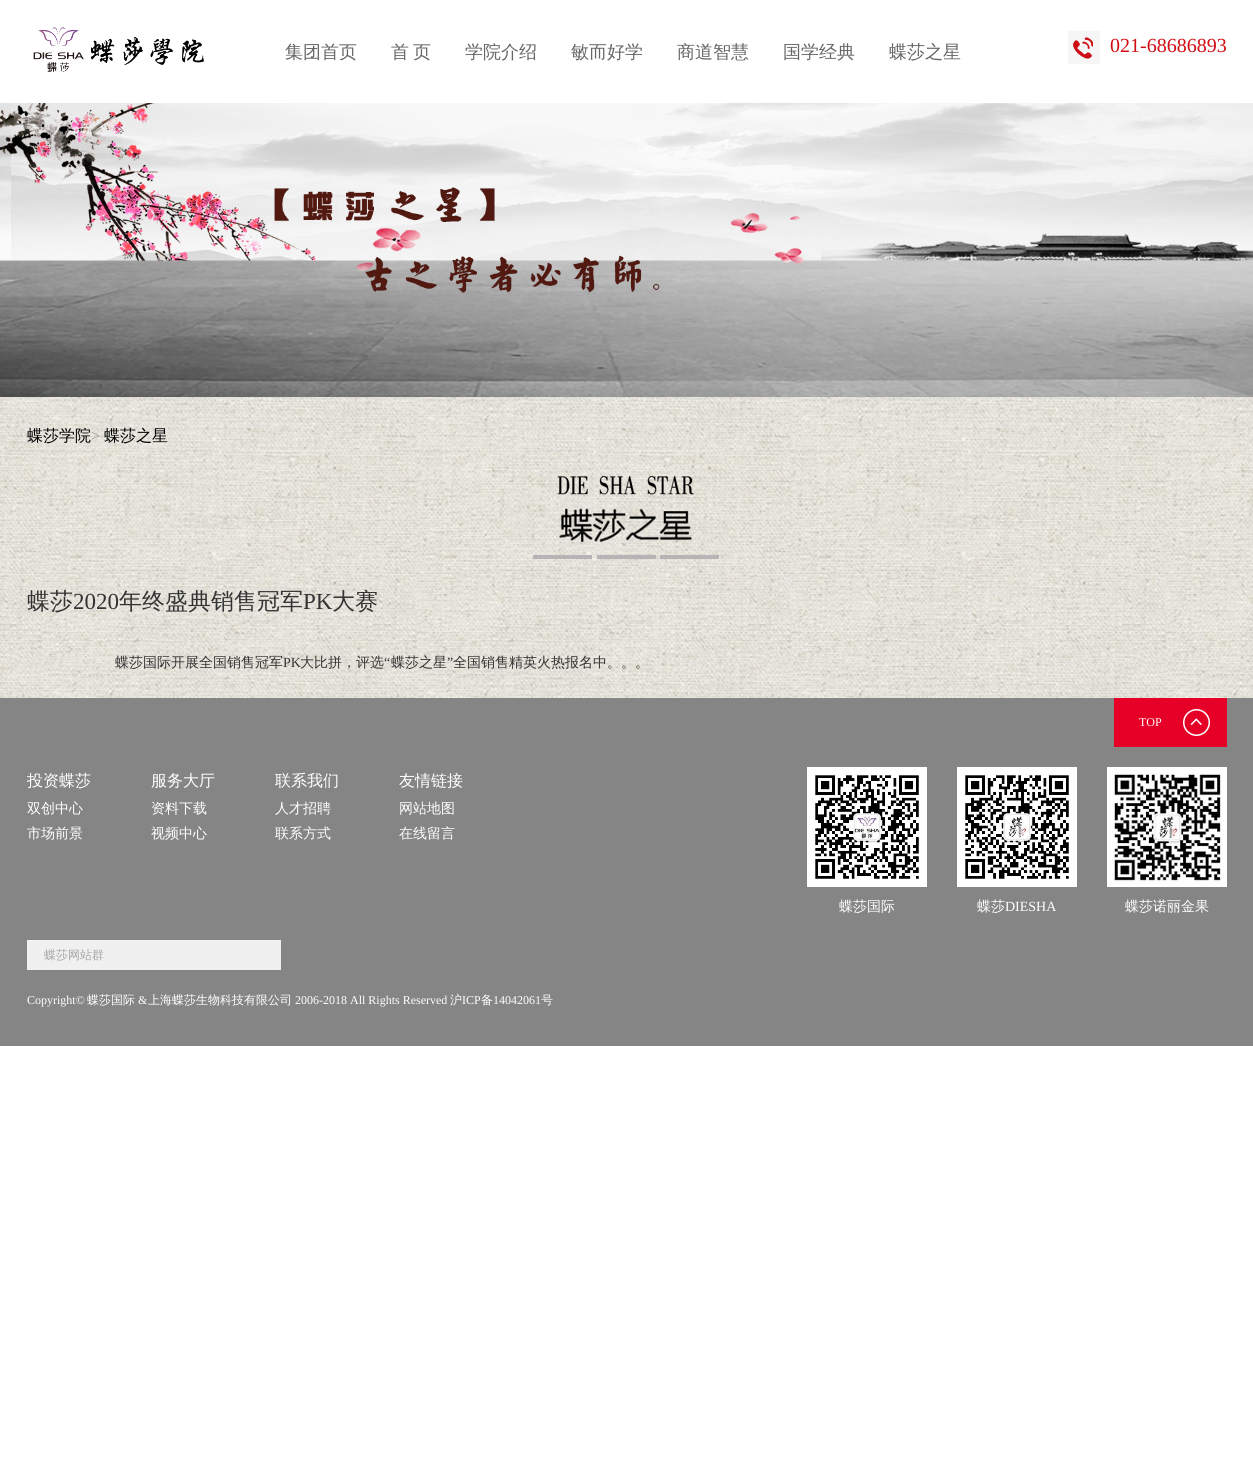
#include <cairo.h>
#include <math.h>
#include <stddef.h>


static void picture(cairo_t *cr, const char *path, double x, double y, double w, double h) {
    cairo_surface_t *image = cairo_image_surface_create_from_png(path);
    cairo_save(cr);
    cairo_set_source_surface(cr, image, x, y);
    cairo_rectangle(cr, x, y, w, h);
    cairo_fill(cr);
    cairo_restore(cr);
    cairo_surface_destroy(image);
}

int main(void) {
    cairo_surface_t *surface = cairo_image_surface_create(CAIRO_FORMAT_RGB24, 1253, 1471);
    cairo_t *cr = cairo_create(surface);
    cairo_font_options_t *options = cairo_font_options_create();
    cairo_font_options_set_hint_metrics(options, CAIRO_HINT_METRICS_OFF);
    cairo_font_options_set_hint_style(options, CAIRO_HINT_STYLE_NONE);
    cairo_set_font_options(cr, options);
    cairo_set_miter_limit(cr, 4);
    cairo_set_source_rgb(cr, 1, 1, 1);
    cairo_paint(cr);
    picture(cr, "img1.png", 33, 27, 171, 45);
    cairo_select_font_face(cr, "WenQuanYi Zen Hei Medium", CAIRO_FONT_SLANT_NORMAL, CAIRO_FONT_WEIGHT_NORMAL);
    cairo_set_font_size(cr, 18);
    cairo_set_source_rgb(cr, 0.4, 0.4, 0.4);
    cairo_move_to(cr, 285, 58);
    cairo_show_text(cr, "集团首页");
    cairo_move_to(cr, 391, 58);
    cairo_show_text(cr, "首");
    cairo_move_to(cr, 413, 58);
    cairo_show_text(cr, "页");
    cairo_move_to(cr, 465, 58);
    cairo_show_text(cr, "学院介绍");
    cairo_move_to(cr, 571, 58);
    cairo_show_text(cr, "敏而好学");
    cairo_move_to(cr, 677, 58);
    cairo_show_text(cr, "商道智慧");
    cairo_move_to(cr, 783, 58);
    cairo_show_text(cr, "国学经典");
    cairo_move_to(cr, 889, 58);
    cairo_show_text(cr, "蝶莎之星");
    picture(cr, "img2.png", 1068, 31, 32, 33);
    cairo_select_font_face(cr, "Liberation Serif", CAIRO_FONT_SLANT_NORMAL, CAIRO_FONT_WEIGHT_NORMAL);
    cairo_set_font_size(cr, 20);
    cairo_set_source_rgb(cr, 0.816, 0.051, 0.075);
    cairo_move_to(cr, 1110, 52);
    cairo_show_text(cr, "021-68686893");
    picture(cr, "img3.png", 0, 103, 1253, 294);
    picture(cr, "img4.png", 0, 397, 1253, 301);
    cairo_select_font_face(cr, "WenQuanYi Zen Hei Medium", CAIRO_FONT_SLANT_NORMAL, CAIRO_FONT_WEIGHT_NORMAL);
    cairo_set_font_size(cr, 16);
    cairo_set_source_rgb(cr, 0, 0, 0);
    cairo_move_to(cr, 27, 441);
    cairo_show_text(cr, "蝶莎学院");
    cairo_select_font_face(cr, "Liberation Serif", CAIRO_FONT_SLANT_NORMAL, CAIRO_FONT_WEIGHT_NORMAL);
    cairo_set_source_rgb(cr, 0.6, 0.6, 0.6);
    cairo_move_to(cr, 91, 441);
    cairo_show_text(cr, ">");
    cairo_select_font_face(cr, "WenQuanYi Zen Hei Medium", CAIRO_FONT_SLANT_NORMAL, CAIRO_FONT_WEIGHT_NORMAL);
    cairo_set_source_rgb(cr, 0, 0, 0);
    cairo_move_to(cr, 104, 441);
    cairo_show_text(cr, "蝶莎之星");
    picture(cr, "img5.png", 533, 476, 186, 83);
    cairo_set_font_size(cr, 23);
    cairo_set_source_rgb(cr, 0.2, 0.2, 0.2);
    cairo_move_to(cr, 27, 609);
    cairo_show_text(cr, "蝶莎");
    cairo_select_font_face(cr, "Liberation Serif", CAIRO_FONT_SLANT_NORMAL, CAIRO_FONT_WEIGHT_NORMAL);
    cairo_move_to(cr, 73, 609);
    cairo_show_text(cr, "2020");
    cairo_select_font_face(cr, "WenQuanYi Zen Hei Medium", CAIRO_FONT_SLANT_NORMAL, CAIRO_FONT_WEIGHT_NORMAL);
    cairo_move_to(cr, 119, 609);
    cairo_show_text(cr, "年终盛典销售冠军");
    cairo_select_font_face(cr, "Liberation Serif", CAIRO_FONT_SLANT_NORMAL, CAIRO_FONT_WEIGHT_NORMAL);
    cairo_move_to(cr, 303, 609);
    cairo_show_text(cr, "PK");
    cairo_select_font_face(cr, "WenQuanYi Zen Hei Medium", CAIRO_FONT_SLANT_NORMAL, CAIRO_FONT_WEIGHT_NORMAL);
    cairo_move_to(cr, 332, 609);
    cairo_show_text(cr, "大赛");
    cairo_set_font_size(cr, 14);
    cairo_move_to(cr, 115, 667);
    cairo_show_text(cr, "蝶莎国际开展全国销售冠军");
    cairo_select_font_face(cr, "Liberation Serif", CAIRO_FONT_SLANT_NORMAL, CAIRO_FONT_WEIGHT_NORMAL);
    cairo_move_to(cr, 283, 667);
    cairo_show_text(cr, "PK");
    cairo_select_font_face(cr, "WenQuanYi Zen Hei Medium", CAIRO_FONT_SLANT_NORMAL, CAIRO_FONT_WEIGHT_NORMAL);
    cairo_move_to(cr, 300, 667);
    cairo_show_text(cr, "大比拼，评选");
    cairo_select_font_face(cr, "Liberation Serif", CAIRO_FONT_SLANT_NORMAL, CAIRO_FONT_WEIGHT_NORMAL);
    cairo_move_to(cr, 384, 667);
    cairo_show_text(cr, "“");
    cairo_select_font_face(cr, "WenQuanYi Zen Hei Medium", CAIRO_FONT_SLANT_NORMAL, CAIRO_FONT_WEIGHT_NORMAL);
    cairo_move_to(cr, 391, 667);
    cairo_show_text(cr, "蝶莎之星");
    cairo_select_font_face(cr, "Liberation Serif", CAIRO_FONT_SLANT_NORMAL, CAIRO_FONT_WEIGHT_NORMAL);
    cairo_move_to(cr, 447, 667);
    cairo_show_text(cr, "”");
    cairo_select_font_face(cr, "WenQuanYi Zen Hei Medium", CAIRO_FONT_SLANT_NORMAL, CAIRO_FONT_WEIGHT_NORMAL);
    cairo_move_to(cr, 453, 667);
    cairo_show_text(cr, "全国销售精英火热报名中。。。");
    cairo_set_source_rgb(cr, 0.522, 0.522, 0.522);
    cairo_rectangle(cr, 0, 698, 1253, 348);
    cairo_fill(cr);
    cairo_set_source_rgb(cr, 0.902, 0, 0.153);
    cairo_rectangle(cr, 1114, 698, 113, 49);
    cairo_fill(cr);
    picture(cr, "img6.png", 1183, 709, 27, 27);
    cairo_select_font_face(cr, "Liberation Serif", CAIRO_FONT_SLANT_NORMAL, CAIRO_FONT_WEIGHT_NORMAL);
    cairo_set_font_size(cr, 12);
    cairo_set_source_rgb(cr, 1, 1, 1);
    cairo_move_to(cr, 1139, 726);
    cairo_show_text(cr, "TOP");
    picture(cr, "img7.png", 1190, 718, 12, 8);
    cairo_save(cr);
    cairo_rectangle(cr, 27, 767, 64, 29);
    cairo_clip(cr);
    cairo_select_font_face(cr, "WenQuanYi Zen Hei Medium", CAIRO_FONT_SLANT_NORMAL, CAIRO_FONT_WEIGHT_NORMAL);
    cairo_set_font_size(cr, 16);
    cairo_move_to(cr, 27, 786);
    cairo_show_text(cr, "投资蝶莎");
    cairo_restore(cr);
    cairo_select_font_face(cr, "WenQuanYi Zen Hei Medium", CAIRO_FONT_SLANT_NORMAL, CAIRO_FONT_WEIGHT_NORMAL);
    cairo_set_font_size(cr, 14);
    cairo_move_to(cr, 27, 813);
    cairo_show_text(cr, "双创中心");
    cairo_move_to(cr, 27, 838);
    cairo_show_text(cr, "市场前景");
    cairo_set_font_size(cr, 16);
    cairo_move_to(cr, 151, 786);
    cairo_show_text(cr, "服务大厅");
    cairo_set_font_size(cr, 14);
    cairo_move_to(cr, 151, 813);
    cairo_show_text(cr, "资料下载");
    cairo_move_to(cr, 151, 838);
    cairo_show_text(cr, "视频中心");
    cairo_set_font_size(cr, 16);
    cairo_move_to(cr, 275, 786);
    cairo_show_text(cr, "联系我们");
    cairo_set_font_size(cr, 14);
    cairo_move_to(cr, 275, 813);
    cairo_show_text(cr, "人才招聘");
    cairo_move_to(cr, 275, 838);
    cairo_show_text(cr, "联系方式");
    cairo_set_font_size(cr, 16);
    cairo_move_to(cr, 399, 786);
    cairo_show_text(cr, "友情链接");
    cairo_set_font_size(cr, 14);
    cairo_move_to(cr, 399, 813);
    cairo_show_text(cr, "网站地图");
    cairo_move_to(cr, 399, 838);
    cairo_show_text(cr, "在线留言");
    picture(cr, "img8.png", 807, 767, 120, 120);
    cairo_move_to(cr, 839, 911);
    cairo_show_text(cr, "蝶莎国际");
    picture(cr, "img9.png", 957, 767, 120, 120);
    cairo_move_to(cr, 977, 911);
    cairo_show_text(cr, "蝶莎");
    cairo_select_font_face(cr, "Liberation Serif", CAIRO_FONT_SLANT_NORMAL, CAIRO_FONT_WEIGHT_NORMAL);
    cairo_move_to(cr, 1005, 911);
    cairo_show_text(cr, "DIESHA");
    picture(cr, "img10.png", 1107, 767, 120, 120);
    cairo_select_font_face(cr, "WenQuanYi Zen Hei Medium", CAIRO_FONT_SLANT_NORMAL, CAIRO_FONT_WEIGHT_NORMAL);
    cairo_move_to(cr, 1125, 911);
    cairo_show_text(cr, "蝶莎诺丽金果");
    cairo_set_source_rgb(cr, 0.945, 0.941, 0.941);
    cairo_rectangle(cr, 27, 940, 254, 30);
    cairo_fill(cr);
    cairo_set_font_size(cr, 12);
    cairo_set_source_rgb(cr, 0.651, 0.651, 0.651);
    cairo_move_to(cr, 44, 959);
    cairo_show_text(cr, "蝶莎网站群");
    cairo_select_font_face(cr, "Liberation Serif", CAIRO_FONT_SLANT_NORMAL, CAIRO_FONT_WEIGHT_NORMAL);
    cairo_set_source_rgb(cr, 1, 1, 1);
    cairo_move_to(cr, 27, 1004);
    cairo_show_text(cr, "Copyright©");
    cairo_select_font_face(cr, "WenQuanYi Zen Hei Medium", CAIRO_FONT_SLANT_NORMAL, CAIRO_FONT_WEIGHT_NORMAL);
    cairo_move_to(cr, 87, 1004);
    cairo_show_text(cr, "蝶莎国际");
    cairo_select_font_face(cr, "Liberation Serif", CAIRO_FONT_SLANT_NORMAL, CAIRO_FONT_WEIGHT_NORMAL);
    cairo_move_to(cr, 138, 1004);
    cairo_show_text(cr, "&");
    cairo_select_font_face(cr, "WenQuanYi Zen Hei Medium", CAIRO_FONT_SLANT_NORMAL, CAIRO_FONT_WEIGHT_NORMAL);
    cairo_move_to(cr, 148, 1004);
    cairo_show_text(cr, "上海蝶莎生物科技有限公司");
    cairo_select_font_face(cr, "Liberation Serif", CAIRO_FONT_SLANT_NORMAL, CAIRO_FONT_WEIGHT_NORMAL);
    cairo_move_to(cr, 295, 1004);
    cairo_show_text(cr, "2006-2018 All Rights Reserved");
    cairo_select_font_face(cr, "WenQuanYi Zen Hei Medium", CAIRO_FONT_SLANT_NORMAL, CAIRO_FONT_WEIGHT_NORMAL);
    cairo_move_to(cr, 450, 1004);
    cairo_show_text(cr, "沪");
    cairo_select_font_face(cr, "Liberation Serif", CAIRO_FONT_SLANT_NORMAL, CAIRO_FONT_WEIGHT_NORMAL);
    cairo_move_to(cr, 462, 1004);
    cairo_show_text(cr, "ICP");
    cairo_select_font_face(cr, "WenQuanYi Zen Hei Medium", CAIRO_FONT_SLANT_NORMAL, CAIRO_FONT_WEIGHT_NORMAL);
    cairo_move_to(cr, 481, 1004);
    cairo_show_text(cr, "备");
    cairo_select_font_face(cr, "Liberation Serif", CAIRO_FONT_SLANT_NORMAL, CAIRO_FONT_WEIGHT_NORMAL);
    cairo_move_to(cr, 493, 1004);
    cairo_show_text(cr, "14042061");
    cairo_select_font_face(cr, "WenQuanYi Zen Hei Medium", CAIRO_FONT_SLANT_NORMAL, CAIRO_FONT_WEIGHT_NORMAL);
    cairo_move_to(cr, 541, 1004);
    cairo_show_text(cr, "号");
    cairo_surface_write_to_png(surface, "page.png");
    cairo_font_options_destroy(options);
    cairo_destroy(cr);
    cairo_surface_destroy(surface);
    return 0;
}
